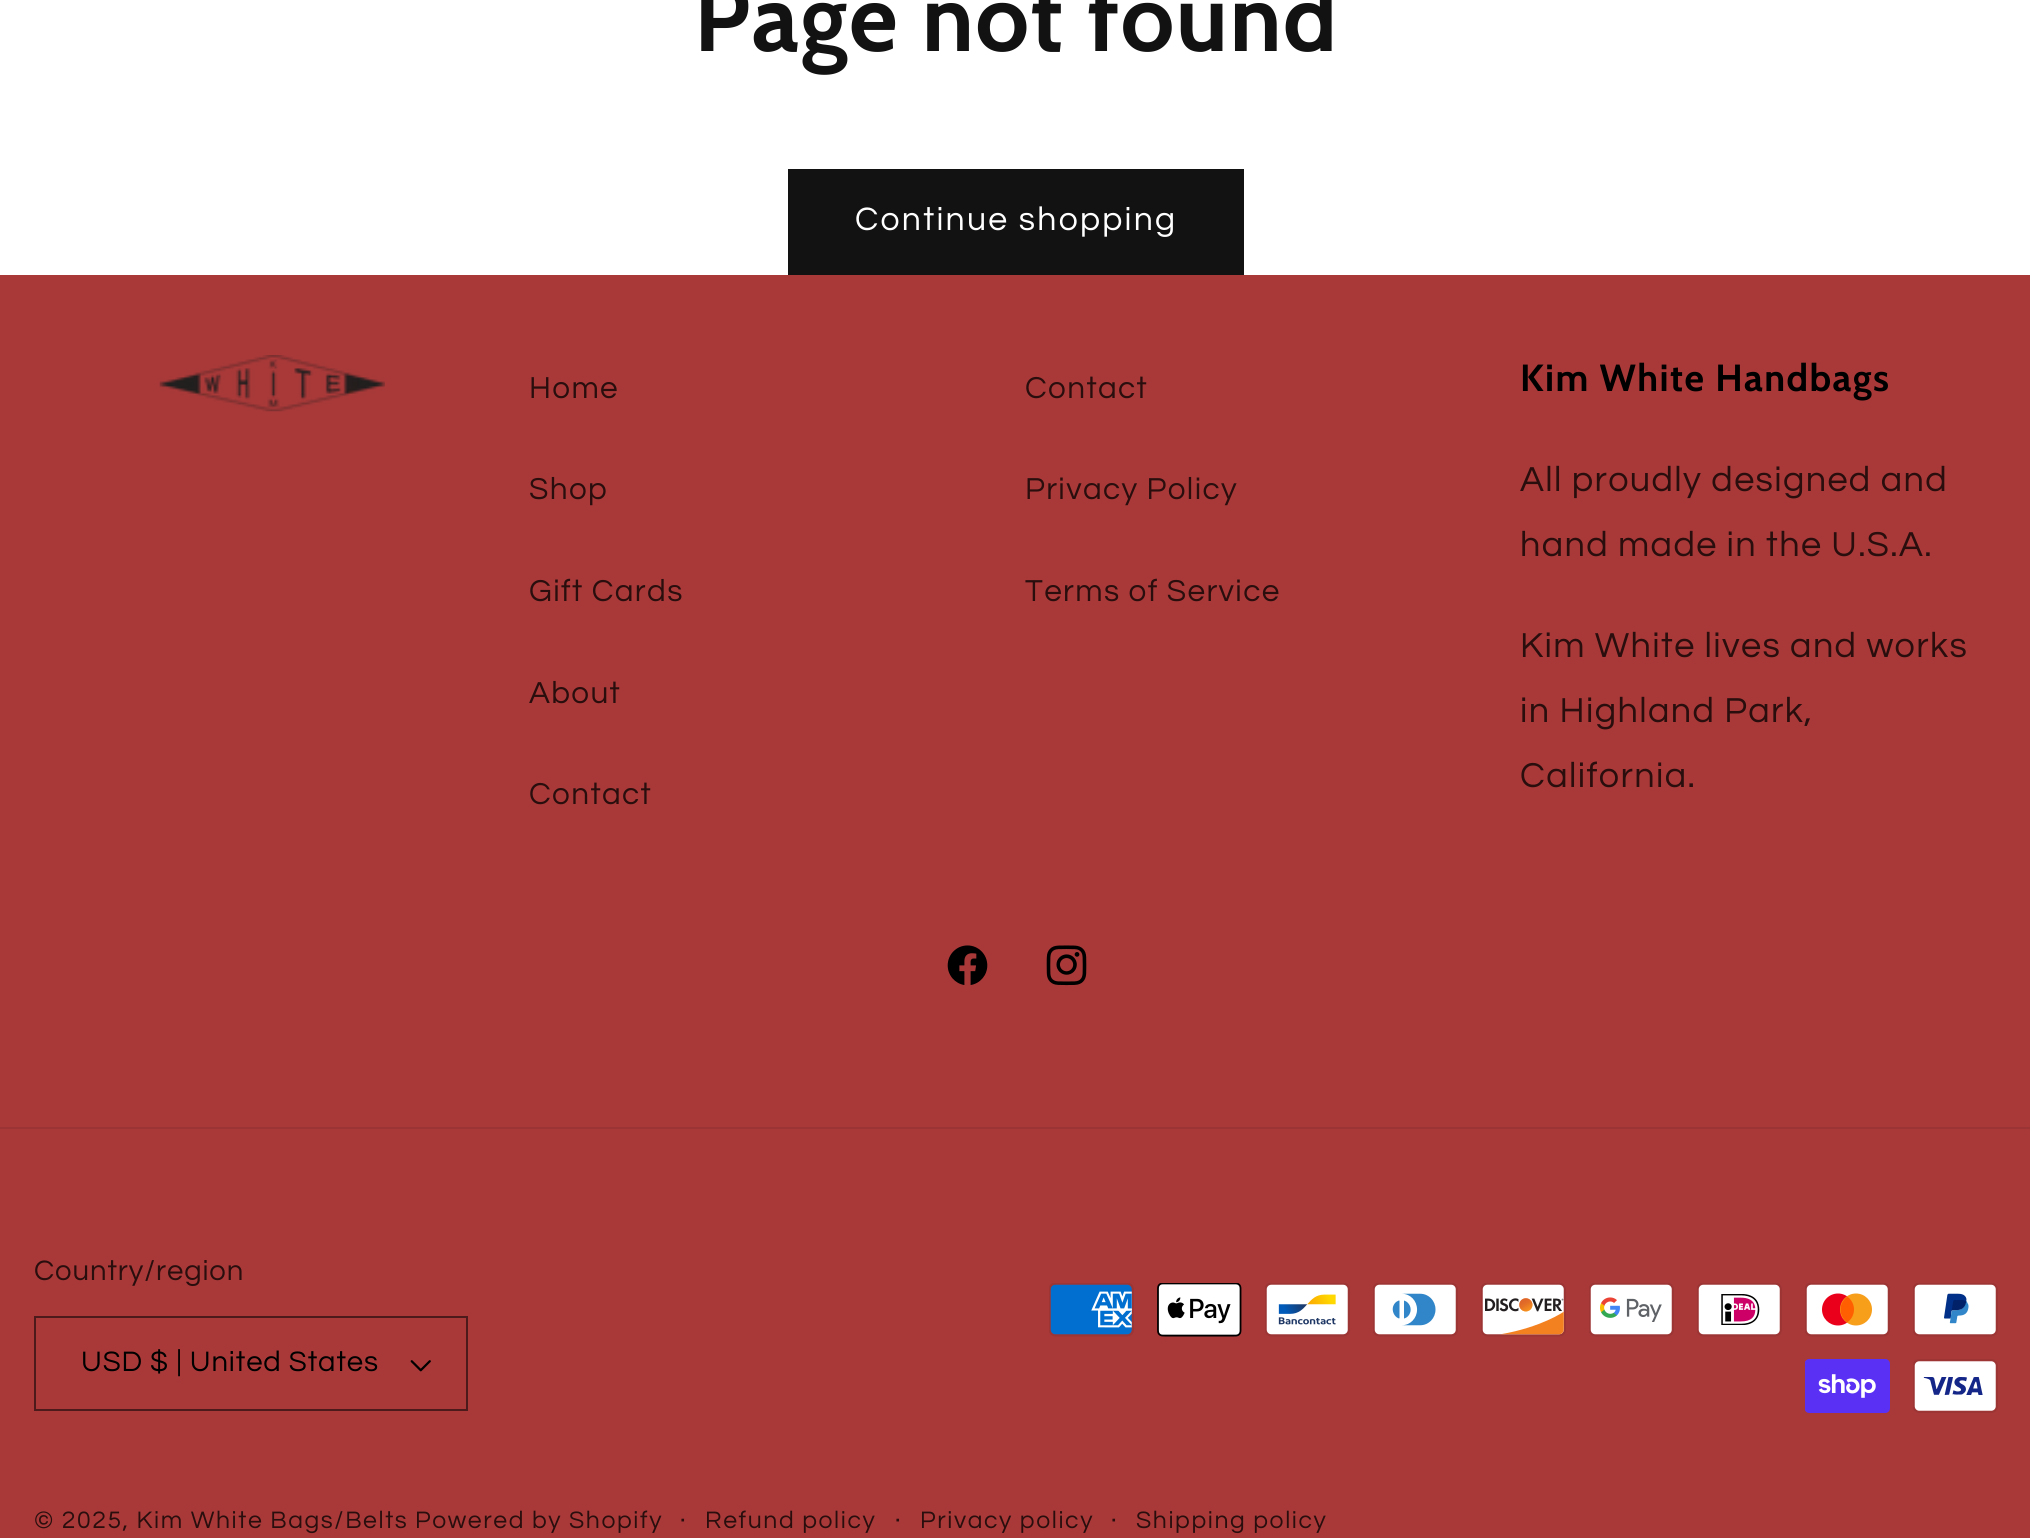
#include <cairo.h>
#include <math.h>
#include <stddef.h>


static void spaced_text(cairo_t *cr, double x, double y, const char *s, double letter, double word) {
    cairo_move_to(cr, x, y);
    while (*s) {
        char ch[5] = {0};
        int n = 0;
        do ch[n++] = *s++; while ((*s & 0xC0) == 0x80);
        cairo_show_text(cr, ch);
        cairo_rel_move_to(cr, letter + word * (*ch == ' '), 0);
    }
}

static void picture(cairo_t *cr, const char *path, double x, double y, double w, double h) {
    cairo_surface_t *image = cairo_image_surface_create_from_png(path);
    cairo_save(cr);
    cairo_set_source_surface(cr, image, x, y);
    cairo_rectangle(cr, x, y, w, h);
    cairo_fill(cr);
    cairo_restore(cr);
    cairo_surface_destroy(image);
}

int main(void) {
    cairo_surface_t *surface = cairo_image_surface_create(CAIRO_FORMAT_RGB24, 2030, 1538);
    cairo_t *cr = cairo_create(surface);
    cairo_font_options_t *options = cairo_font_options_create();
    cairo_font_options_set_hint_metrics(options, CAIRO_HINT_METRICS_OFF);
    cairo_font_options_set_hint_style(options, CAIRO_HINT_STYLE_NONE);
    cairo_set_font_options(cr, options);
    cairo_set_miter_limit(cr, 4);
    cairo_set_source_rgb(cr, 1, 1, 1);
    cairo_paint(cr);
    cairo_select_font_face(cr, "Cabin", CAIRO_FONT_SLANT_NORMAL, CAIRO_FONT_WEIGHT_BOLD);
    cairo_set_font_size(cr, 94.5);
    cairo_set_source_rgb(cr, 0.071, 0.071, 0.071);
    spaced_text(cr, 694, 51, "Page not found", 1.4, 0);
    cairo_rectangle(cr, 788, 169, 456, 106);
    cairo_fill(cr);
    cairo_select_font_face(cr, "Questrial", CAIRO_FONT_SLANT_NORMAL, CAIRO_FONT_WEIGHT_NORMAL);
    cairo_set_font_size(cr, 33.75);
    cairo_set_source_rgb(cr, 1, 1, 1);
    spaced_text(cr, 855, 230, "Continue shopping", 2.25, 0);
    cairo_set_source_rgb(cr, 0.663, 0.224, 0.224);
    cairo_rectangle(cr, 0, 275, 2030, 1263);
    cairo_fill(cr);
    picture(cr, "img1.png", 159, 355, 226, 57);
    cairo_set_font_size(cr, 31.5);
    cairo_set_source_rgb(cr, 0.165, 0.055, 0.055);
    spaced_text(cr, 529, 398, "Home", 1.35, 0);
    spaced_text(cr, 529, 499, "Shop", 1.35, 0);
    spaced_text(cr, 529, 601, "Gift Cards", 1.35, 0);
    spaced_text(cr, 529, 703, "About", 1.35, 0);
    spaced_text(cr, 529, 804, "Contact", 1.35, 0);
    spaced_text(cr, 1025, 398, "Contact", 1.35, 0);
    spaced_text(cr, 1025, 499, "Privacy Policy", 1.35, 0);
    spaced_text(cr, 1025, 601, "Terms of Service", 1.35, 0);
    cairo_select_font_face(cr, "Cabin", CAIRO_FONT_SLANT_NORMAL, CAIRO_FONT_WEIGHT_BOLD);
    cairo_set_font_size(cr, 37.75);
    cairo_set_source_rgb(cr, 0, 0, 0);
    spaced_text(cr, 1520, 391, "Kim White Handbags", 1.4, 0);
    cairo_select_font_face(cr, "Questrial", CAIRO_FONT_SLANT_NORMAL, CAIRO_FONT_WEIGHT_NORMAL);
    cairo_set_font_size(cr, 36);
    cairo_set_source_rgb(cr, 0.165, 0.055, 0.055);
    spaced_text(cr, 1520, 491, "All proudly designed and", 1.35, 0);
    spaced_text(cr, 1520, 556, "hand made in the U.S.A.", 1.35, 0);
    spaced_text(cr, 1520, 657, "Kim White lives and works", 1.35, 0);
    spaced_text(cr, 1520, 722, "in Highland Park,", 1.35, 0);
    spaced_text(cr, 1520, 787, "California.", 1.35, 0);
    picture(cr, "img2.png", 947, 945, 41, 40);
    picture(cr, "img3.png", 1046, 945, 41, 41);
    cairo_set_source_rgb(cr, 0.608, 0.204, 0.204);
    cairo_rectangle(cr, 0, 1127, 2030, 2);
    cairo_fill(cr);
    cairo_set_font_size(cr, 29.25);
    cairo_set_source_rgb(cr, 0.165, 0.055, 0.055);
    spaced_text(cr, 34, 1280, "Country/region", 0.9, 0);
    picture(cr, "img4.png", 410, 1360, 21, 12);
    cairo_rectangle(cr, 35, 1317, 432, 93);
    cairo_set_source_rgb(cr, 0.298, 0.102, 0.102);
    cairo_stroke(cr);
    cairo_set_source_rgb(cr, 0, 0, 0);
    spaced_text(cr, 81, 1371, "USD $ | United States", 0.9, 0);
    picture(cr, "img5.png", 1049, 1283, 85, 54);
    picture(cr, "img6.png", 1157, 1283, 85, 54);
    picture(cr, "img7.png", 1265, 1283, 85, 54);
    picture(cr, "img8.png", 1373, 1283, 85, 54);
    picture(cr, "img9.png", 1481, 1283, 85, 54);
    picture(cr, "img10.png", 1589, 1283, 85, 54);
    picture(cr, "img11.png", 1697, 1283, 85, 54);
    picture(cr, "img12.png", 1805, 1283, 85, 54);
    picture(cr, "img13.png", 1913, 1283, 85, 54);
    picture(cr, "img14.png", 1805, 1359, 85, 54);
    picture(cr, "img15.png", 1913, 1359, 85, 54);
    cairo_set_font_size(cr, 24.75);
    cairo_set_source_rgb(cr, 0.165, 0.055, 0.055);
    spaced_text(cr, 34, 1528, "© 2025, Kim White Bags/Belts", 1.6, 0);
    spaced_text(cr, 415, 1528, "Powered by Shopify", 1.6, 0);
    cairo_set_font_size(cr, 27);
    spaced_text(cr, 680, 1528, "·", 1.6, 0);
    cairo_set_font_size(cr, 24.75);
    spaced_text(cr, 705, 1528, "Refund policy", 1.6, 0);
    cairo_set_font_size(cr, 27);
    spaced_text(cr, 895, 1528, "·", 1.6, 0);
    cairo_set_font_size(cr, 24.75);
    spaced_text(cr, 920, 1528, "Privacy policy", 1.6, 0);
    cairo_set_font_size(cr, 27);
    spaced_text(cr, 1111, 1528, "·", 1.6, 0);
    cairo_set_font_size(cr, 24.75);
    spaced_text(cr, 1136, 1528, "Shipping policy", 1.6, 0);
    cairo_surface_write_to_png(surface, "page.png");
    cairo_font_options_destroy(options);
    cairo_destroy(cr);
    cairo_surface_destroy(surface);
    return 0;
}
